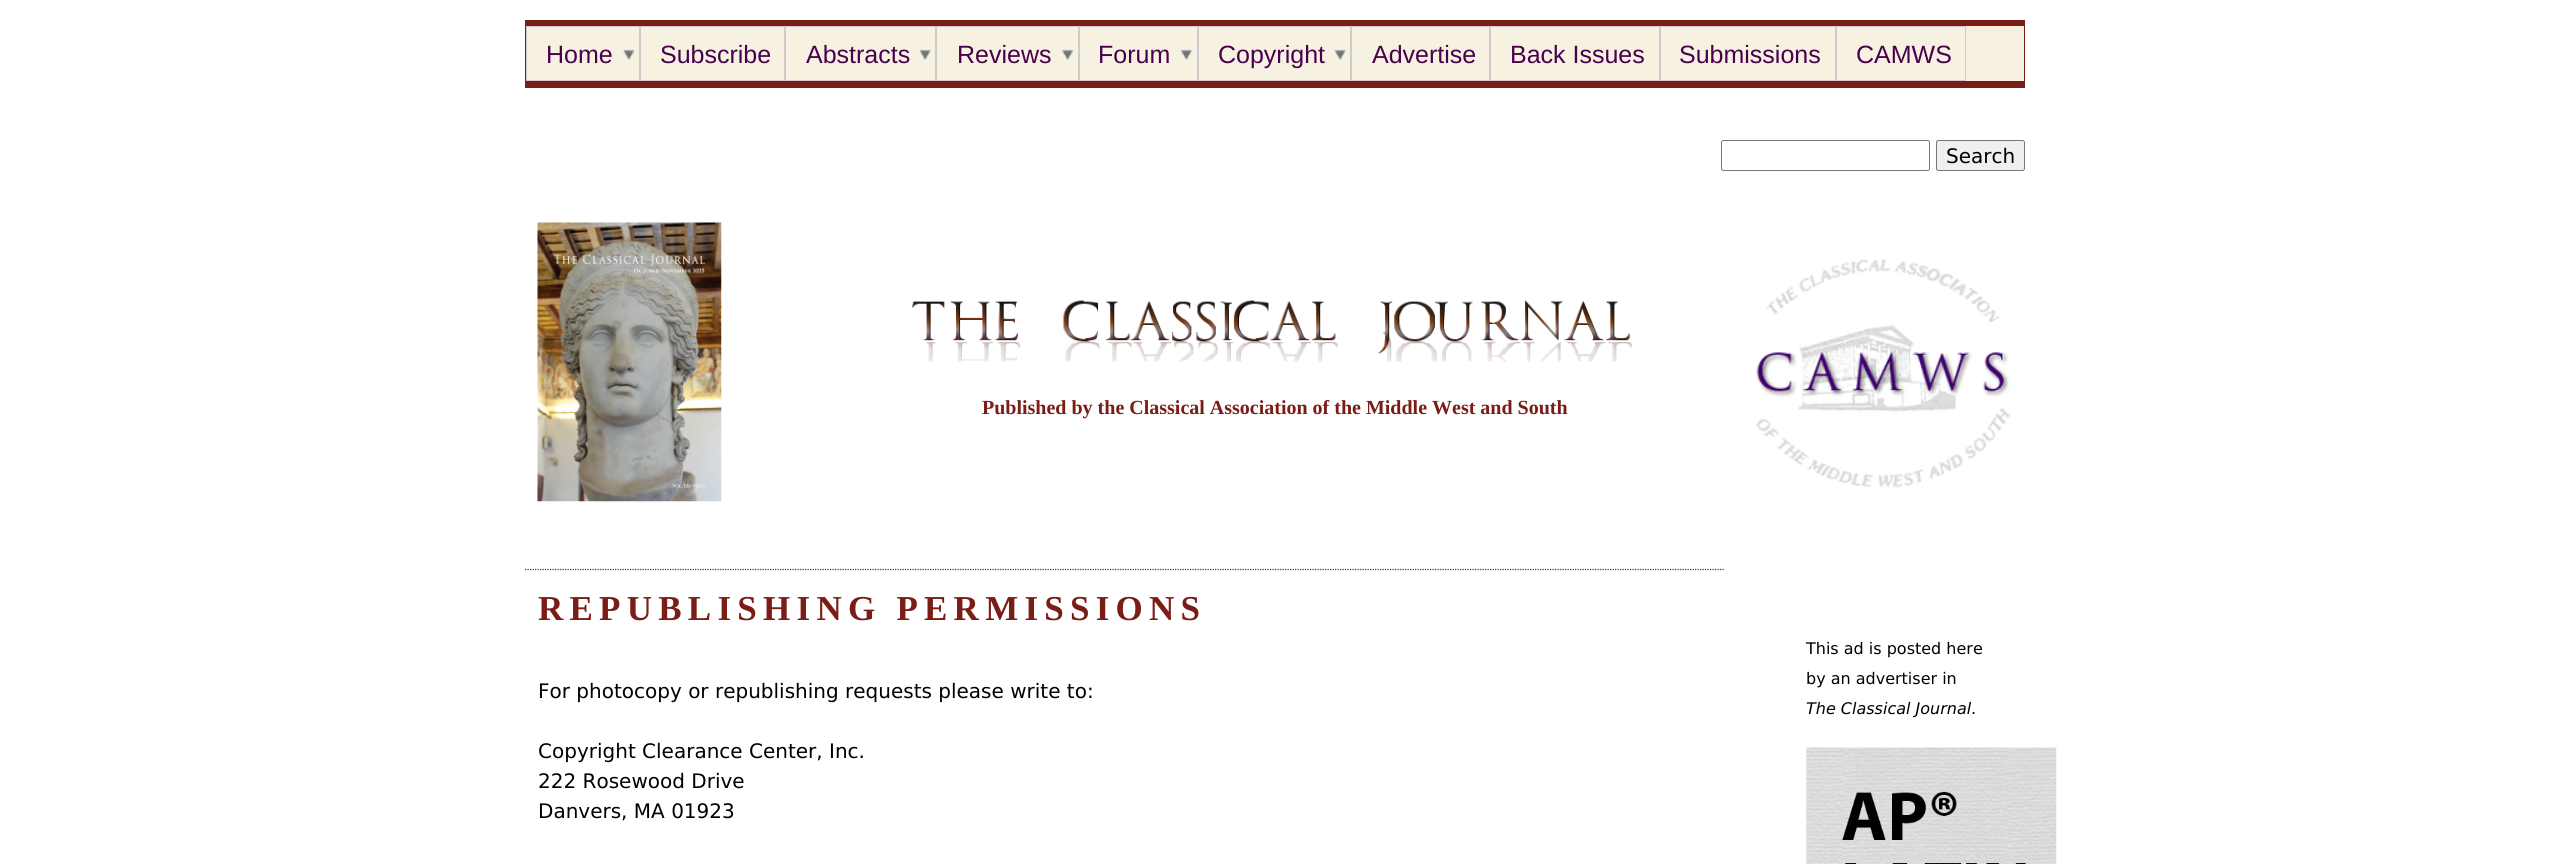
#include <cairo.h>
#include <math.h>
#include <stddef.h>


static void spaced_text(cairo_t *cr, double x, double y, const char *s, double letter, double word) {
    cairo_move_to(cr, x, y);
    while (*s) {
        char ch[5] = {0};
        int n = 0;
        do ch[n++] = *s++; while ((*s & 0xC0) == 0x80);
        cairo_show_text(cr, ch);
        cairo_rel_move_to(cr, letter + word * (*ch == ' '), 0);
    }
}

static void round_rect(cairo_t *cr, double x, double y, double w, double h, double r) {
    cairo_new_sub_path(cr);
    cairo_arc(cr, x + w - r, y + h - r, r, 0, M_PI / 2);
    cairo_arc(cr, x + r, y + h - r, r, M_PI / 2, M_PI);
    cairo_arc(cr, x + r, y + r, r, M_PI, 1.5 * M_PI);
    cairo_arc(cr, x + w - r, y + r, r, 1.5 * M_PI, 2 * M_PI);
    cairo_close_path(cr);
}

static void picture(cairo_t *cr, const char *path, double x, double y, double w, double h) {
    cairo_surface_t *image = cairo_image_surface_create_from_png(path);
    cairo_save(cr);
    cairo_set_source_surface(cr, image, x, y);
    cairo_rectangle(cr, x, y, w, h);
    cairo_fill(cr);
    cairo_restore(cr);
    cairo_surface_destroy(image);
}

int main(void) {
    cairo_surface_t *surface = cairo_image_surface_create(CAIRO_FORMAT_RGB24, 2550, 864);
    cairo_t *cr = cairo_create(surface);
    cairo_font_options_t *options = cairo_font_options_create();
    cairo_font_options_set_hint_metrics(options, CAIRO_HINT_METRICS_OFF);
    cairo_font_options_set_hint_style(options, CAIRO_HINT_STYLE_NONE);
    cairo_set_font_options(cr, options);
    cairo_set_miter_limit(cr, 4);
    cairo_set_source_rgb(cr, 1, 1, 1);
    cairo_paint(cr);
    cairo_set_source_rgb(cr, 0.478, 0.114, 0.086);
    cairo_rectangle(cr, 525, 20, 1500, 68);
    cairo_fill(cr);
    cairo_set_source_rgb(cr, 0.961, 0.945, 0.878);
    cairo_rectangle(cr, 527, 26, 1497, 55);
    cairo_fill(cr);
    picture(cr, "img1.png", 622, 49, 13, 11);
    cairo_rectangle(cr, 526.5, 26.5, 113, 54);
    cairo_set_source_rgb(cr, 0.8, 0.8, 0.8);
    cairo_set_line_width(cr, 1);
    cairo_stroke(cr);
    cairo_select_font_face(cr, "Liberation Sans", CAIRO_FONT_SLANT_NORMAL, CAIRO_FONT_WEIGHT_NORMAL);
    cairo_set_font_size(cr, 25);
    cairo_set_source_rgb(cr, 0.286, 0, 0.302);
    cairo_move_to(cr, 546, 63);
    cairo_show_text(cr, "Home");
    cairo_rectangle(cr, 640.5, 26.5, 144, 54);
    cairo_set_source_rgb(cr, 0.8, 0.8, 0.8);
    cairo_stroke(cr);
    cairo_set_source_rgb(cr, 0.286, 0, 0.302);
    cairo_move_to(cr, 660, 63);
    cairo_show_text(cr, "Subscribe");
    picture(cr, "img2.png", 919, 49, 13, 12);
    cairo_rectangle(cr, 785.5, 26.5, 150, 54);
    cairo_set_source_rgb(cr, 0.8, 0.8, 0.8);
    cairo_stroke(cr);
    cairo_set_source_rgb(cr, 0.286, 0, 0.302);
    cairo_move_to(cr, 806, 63);
    cairo_show_text(cr, "Abstracts");
    picture(cr, "img3.png", 1061, 49, 13, 11);
    cairo_rectangle(cr, 936.5, 26.5, 142, 54);
    cairo_set_source_rgb(cr, 0.8, 0.8, 0.8);
    cairo_stroke(cr);
    cairo_set_source_rgb(cr, 0.286, 0, 0.302);
    cairo_move_to(cr, 957, 63);
    cairo_show_text(cr, "Reviews");
    picture(cr, "img4.png", 1180, 49, 13, 11);
    cairo_rectangle(cr, 1079.5, 26.5, 118, 54);
    cairo_set_source_rgb(cr, 0.8, 0.8, 0.8);
    cairo_stroke(cr);
    cairo_set_source_rgb(cr, 0.286, 0, 0.302);
    cairo_move_to(cr, 1098, 63);
    cairo_show_text(cr, "Forum");
    picture(cr, "img2.png", 1334, 49, 13, 12);
    cairo_rectangle(cr, 1198.5, 26.5, 152, 54);
    cairo_set_source_rgb(cr, 0.8, 0.8, 0.8);
    cairo_stroke(cr);
    cairo_set_source_rgb(cr, 0.286, 0, 0.302);
    cairo_move_to(cr, 1218, 63);
    cairo_show_text(cr, "Copyright");
    cairo_rectangle(cr, 1351.5, 26.5, 138, 54);
    cairo_set_source_rgb(cr, 0.8, 0.8, 0.8);
    cairo_stroke(cr);
    cairo_set_source_rgb(cr, 0.286, 0, 0.302);
    cairo_move_to(cr, 1372, 63);
    cairo_show_text(cr, "Advertise");
    cairo_rectangle(cr, 1490.5, 26.5, 169, 54);
    cairo_set_source_rgb(cr, 0.8, 0.8, 0.8);
    cairo_stroke(cr);
    cairo_set_source_rgb(cr, 0.286, 0, 0.302);
    cairo_move_to(cr, 1510, 63);
    cairo_show_text(cr, "Back Issues");
    cairo_rectangle(cr, 1660.5, 26.5, 175, 54);
    cairo_set_source_rgb(cr, 0.8, 0.8, 0.8);
    cairo_stroke(cr);
    cairo_set_source_rgb(cr, 0.286, 0, 0.302);
    cairo_move_to(cr, 1679, 63);
    cairo_show_text(cr, "Submissions");
    cairo_rectangle(cr, 1836.5, 26.5, 129, 54);
    cairo_set_source_rgb(cr, 0.8, 0.8, 0.8);
    cairo_stroke(cr);
    cairo_set_source_rgb(cr, 0.286, 0, 0.302);
    cairo_move_to(cr, 1856, 63);
    cairo_show_text(cr, "CAMWS");
    round_rect(cr, 1721.5, 140.5, 208, 30, 2);
    cairo_set_source_rgb(cr, 0.463, 0.463, 0.463);
    cairo_stroke(cr);
    cairo_set_source_rgb(cr, 0.937, 0.937, 0.937);
    round_rect(cr, 1936.5, 140.5, 88, 30, 2);
    cairo_fill_preserve(cr);
    cairo_set_source_rgb(cr, 0.463, 0.463, 0.463);
    cairo_stroke(cr);
    cairo_select_font_face(cr, "DejaVu Sans", CAIRO_FONT_SLANT_NORMAL, CAIRO_FONT_WEIGHT_NORMAL);
    cairo_set_font_size(cr, 20);
    cairo_set_source_rgb(cr, 0, 0, 0);
    cairo_move_to(cr, 1946, 163);
    cairo_show_text(cr, "Search");
    picture(cr, "img5.png", 537, 222, 185, 280);
    picture(cr, "img6.png", 912, 300, 720, 62);
    cairo_select_font_face(cr, "Liberation Serif", CAIRO_FONT_SLANT_NORMAL, CAIRO_FONT_WEIGHT_BOLD);
    cairo_set_source_rgb(cr, 0.478, 0.114, 0.086);
    cairo_move_to(cr, 982, 414);
    cairo_show_text(cr, "Published by the Classical Association of the Middle West and South");
    picture(cr, "img7.png", 1756, 259, 255, 229);
    cairo_new_path(cr);
    cairo_move_to(cr, 525, 569.5);
    cairo_line_to(cr, 1725, 569.5);
    cairo_set_line_width(cr, 1.2);
    cairo_set_dash(cr, (double[]){1.25, 1.25}, 2, 0);
    cairo_stroke(cr);
    cairo_set_font_size(cr, 35);
    spaced_text(cr, 538, 620, "REPUBLISHING PERMISSIONS", 6.25, 0);
    cairo_select_font_face(cr, "DejaVu Sans", CAIRO_FONT_SLANT_NORMAL, CAIRO_FONT_WEIGHT_NORMAL);
    cairo_set_font_size(cr, 20);
    cairo_set_source_rgb(cr, 0, 0, 0);
    cairo_move_to(cr, 538, 698);
    cairo_show_text(cr, "For photocopy or republishing requests please write to:");
    cairo_move_to(cr, 538, 758);
    cairo_show_text(cr, "Copyright Clearance Center, Inc.");
    cairo_move_to(cr, 538, 788);
    cairo_show_text(cr, "222 Rosewood Drive");
    cairo_move_to(cr, 538, 818);
    cairo_show_text(cr, "Danvers, MA 01923");
    cairo_set_font_size(cr, 16);
    cairo_move_to(cr, 1806, 654);
    cairo_show_text(cr, "This ad is posted here");
    cairo_move_to(cr, 1806, 684);
    cairo_show_text(cr, "by an advertiser in");
    cairo_select_font_face(cr, "DejaVu Sans", CAIRO_FONT_SLANT_ITALIC, CAIRO_FONT_WEIGHT_NORMAL);
    cairo_move_to(cr, 1806, 714);
    cairo_show_text(cr, "The Classical Journal");
    cairo_select_font_face(cr, "DejaVu Sans", CAIRO_FONT_SLANT_NORMAL, CAIRO_FONT_WEIGHT_NORMAL);
    cairo_move_to(cr, 1971, 714);
    cairo_show_text(cr, ".");
    picture(cr, "img8.png", 1806, 747, 251, 117);
    cairo_surface_write_to_png(surface, "page.png");
    cairo_font_options_destroy(options);
    cairo_destroy(cr);
    cairo_surface_destroy(surface);
    return 0;
}
